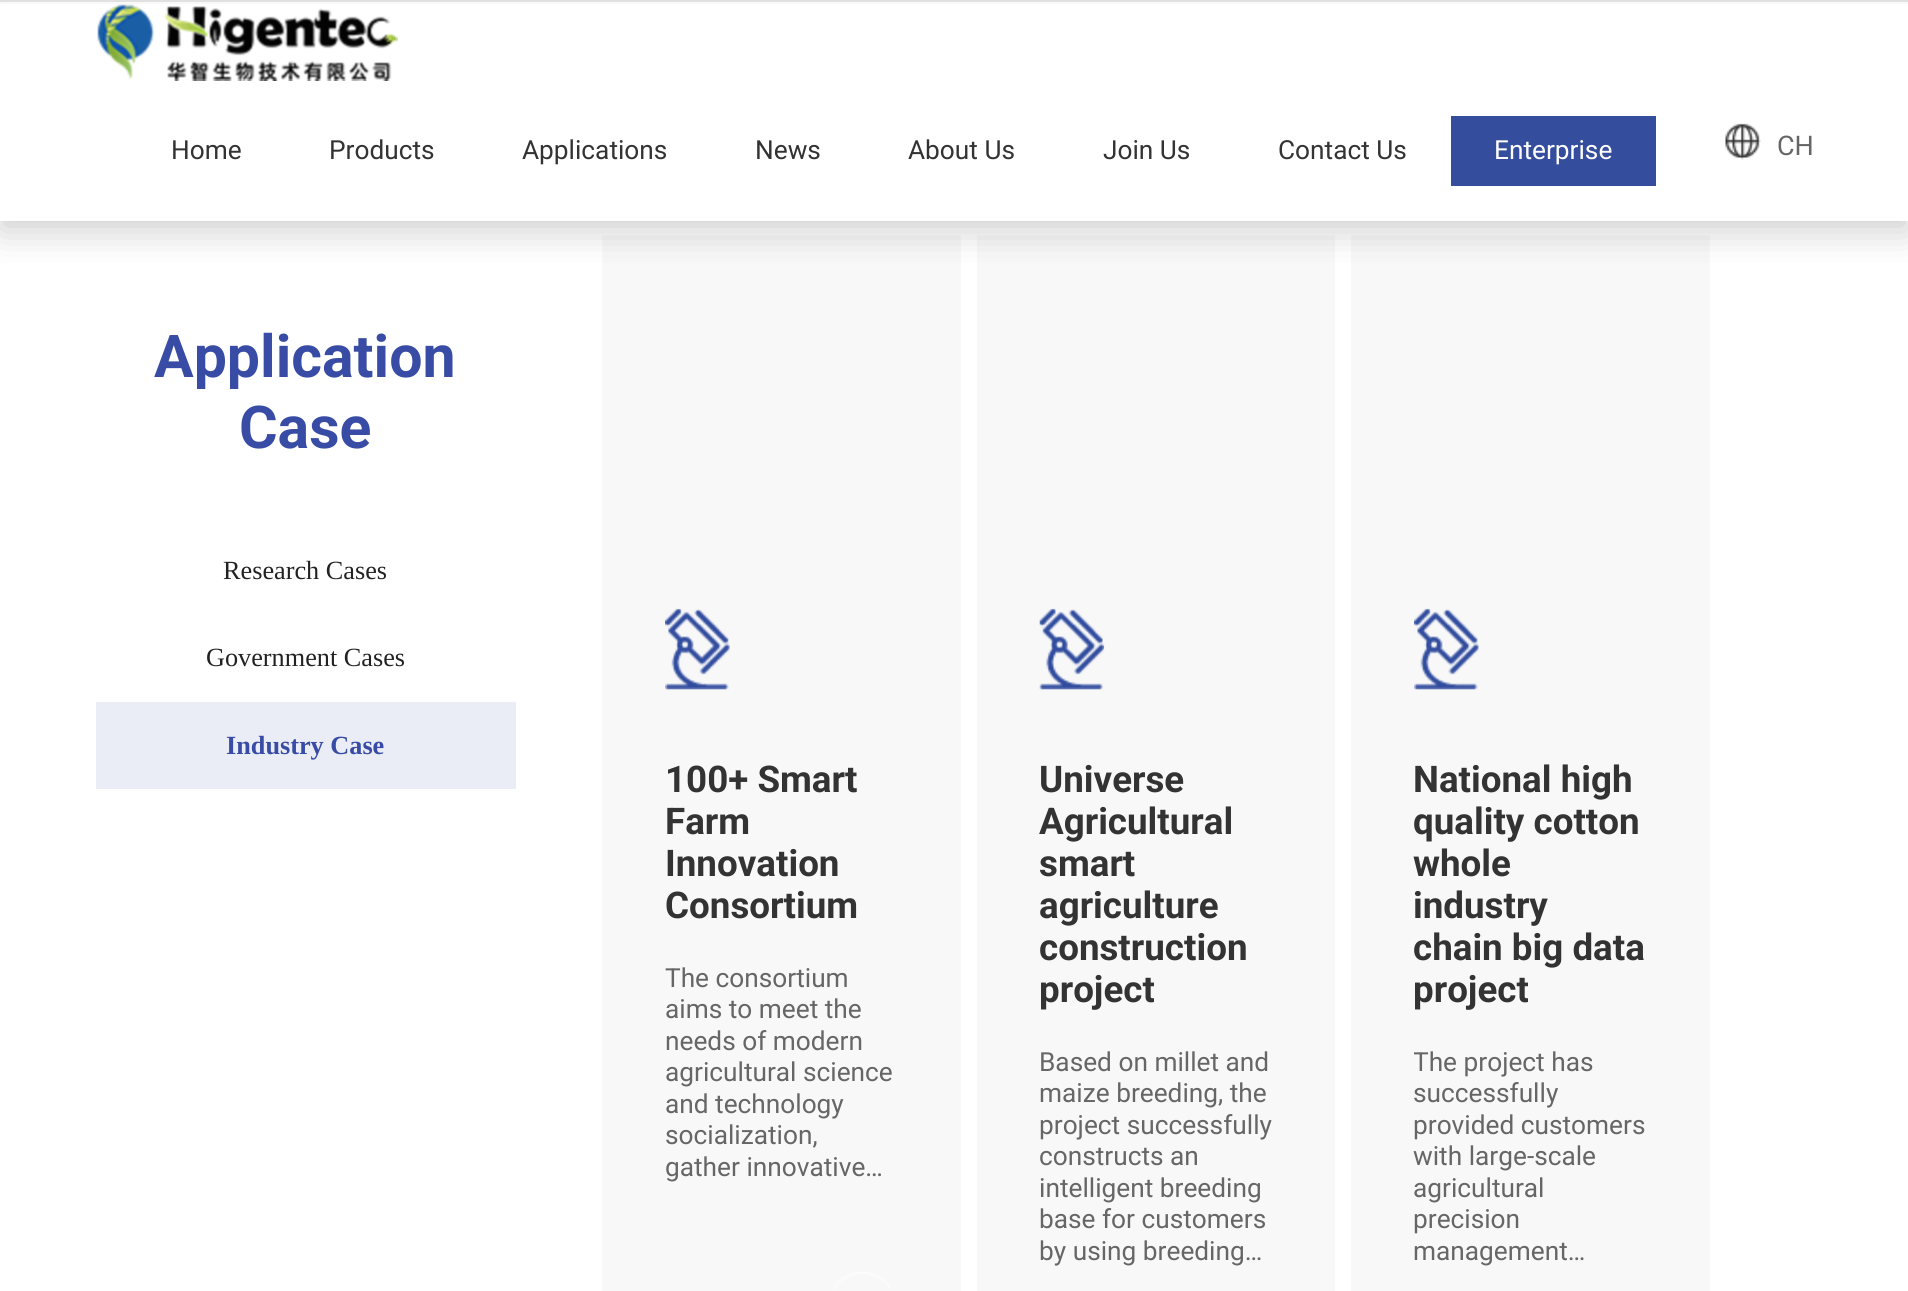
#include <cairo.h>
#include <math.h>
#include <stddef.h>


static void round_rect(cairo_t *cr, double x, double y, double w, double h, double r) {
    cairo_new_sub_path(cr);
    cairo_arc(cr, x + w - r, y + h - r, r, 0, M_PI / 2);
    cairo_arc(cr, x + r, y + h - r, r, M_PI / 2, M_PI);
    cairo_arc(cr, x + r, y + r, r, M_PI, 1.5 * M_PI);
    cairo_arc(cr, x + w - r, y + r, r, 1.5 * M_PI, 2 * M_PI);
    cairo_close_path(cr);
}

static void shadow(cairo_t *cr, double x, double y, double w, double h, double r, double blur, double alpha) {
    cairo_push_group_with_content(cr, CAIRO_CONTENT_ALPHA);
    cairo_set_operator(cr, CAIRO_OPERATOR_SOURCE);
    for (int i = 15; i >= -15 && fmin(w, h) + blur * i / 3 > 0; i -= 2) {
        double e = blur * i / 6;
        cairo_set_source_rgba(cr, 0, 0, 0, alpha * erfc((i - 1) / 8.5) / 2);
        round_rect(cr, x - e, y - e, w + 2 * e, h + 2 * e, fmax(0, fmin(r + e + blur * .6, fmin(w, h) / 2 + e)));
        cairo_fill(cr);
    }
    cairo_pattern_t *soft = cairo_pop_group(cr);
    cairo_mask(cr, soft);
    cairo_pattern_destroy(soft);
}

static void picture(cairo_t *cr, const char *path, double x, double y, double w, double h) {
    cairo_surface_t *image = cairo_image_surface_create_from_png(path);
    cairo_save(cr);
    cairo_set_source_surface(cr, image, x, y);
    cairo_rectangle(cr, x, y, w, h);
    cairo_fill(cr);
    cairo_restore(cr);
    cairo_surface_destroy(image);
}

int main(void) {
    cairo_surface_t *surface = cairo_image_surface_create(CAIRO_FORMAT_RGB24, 1908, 1291);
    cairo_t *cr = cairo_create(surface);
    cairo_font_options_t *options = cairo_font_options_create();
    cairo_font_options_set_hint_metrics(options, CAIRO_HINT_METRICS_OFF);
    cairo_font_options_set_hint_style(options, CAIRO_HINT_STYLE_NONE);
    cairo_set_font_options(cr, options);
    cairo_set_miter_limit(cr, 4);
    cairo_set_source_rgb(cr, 1, 1, 1);
    cairo_paint(cr);
    cairo_set_source_rgb(cr, 0.969, 0.969, 0.969);
    cairo_rectangle(cr, 602, 235, 359, 1056);
    cairo_fill(cr);
    cairo_rectangle(cr, 977, 235, 358, 1056);
    cairo_fill(cr);
    cairo_rectangle(cr, 1351, 235, 359, 1056);
    cairo_fill(cr);
    cairo_set_source_rgb(cr, 0, 0, 0);
    shadow(cr, 0, 11, 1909, 220, 0, 17.5, 0.1);
    cairo_set_source_rgb(cr, 1, 1, 1);
    cairo_rectangle(cr, 0, 2, 1908, 219);
    cairo_fill(cr);
    cairo_set_source_rgb(cr, 0.902, 0.902, 0.902);
    cairo_rectangle(cr, 0, 0, 1908, 2);
    cairo_fill(cr);
    cairo_save(cr);
    cairo_set_fill_rule(cr, CAIRO_FILL_RULE_EVEN_ODD);
    cairo_new_path(cr);
    cairo_move_to(cr, 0, 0);
    cairo_line_to(cr, 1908, 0);
    cairo_line_to(cr, 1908, 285);
    cairo_line_to(cr, 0, 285);
    cairo_close_path(cr);
    cairo_move_to(cr, 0, 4);
    cairo_line_to(cr, 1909, 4);
    cairo_line_to(cr, 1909, 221);
    cairo_line_to(cr, 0, 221);
    cairo_close_path(cr);
    cairo_clip(cr);
    cairo_set_source_rgb(cr, 0, 0, 0);
    shadow(cr, 0, 14, 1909, 217, 0, 17.5, 0.1);
    cairo_restore(cr);
    picture(cr, "img1.png", 97, 4, 301, 77);
    cairo_select_font_face(cr, "Roboto", CAIRO_FONT_SLANT_NORMAL, CAIRO_FONT_WEIGHT_NORMAL);
    cairo_set_font_size(cr, 26.25);
    cairo_set_source_rgb(cr, 0.2, 0.2, 0.2);
    cairo_move_to(cr, 171, 159);
    cairo_show_text(cr, "Home");
    cairo_move_to(cr, 329, 159);
    cairo_show_text(cr, "Products");
    cairo_move_to(cr, 522, 159);
    cairo_show_text(cr, "Applications");
    cairo_move_to(cr, 755, 159);
    cairo_show_text(cr, "News");
    cairo_move_to(cr, 908, 159);
    cairo_show_text(cr, "About Us");
    cairo_move_to(cr, 1103, 159);
    cairo_show_text(cr, "Join Us");
    cairo_move_to(cr, 1278, 159);
    cairo_show_text(cr, "Contact Us");
    cairo_set_source_rgb(cr, 0.204, 0.302, 0.616);
    cairo_rectangle(cr, 1451, 116, 205, 70);
    cairo_fill(cr);
    cairo_set_source_rgb(cr, 1, 1, 1);
    cairo_move_to(cr, 1494, 159);
    cairo_show_text(cr, "Enterprise");
    picture(cr, "img2.png", 1725, 123, 36, 37);
    cairo_set_font_size(cr, 27);
    cairo_set_source_rgb(cr, 0.4, 0.4, 0.4);
    cairo_move_to(cr, 1777, 155);
    cairo_show_text(cr, "CH");
    cairo_select_font_face(cr, "Roboto", CAIRO_FONT_SLANT_NORMAL, CAIRO_FONT_WEIGHT_BOLD);
    cairo_set_font_size(cr, 59);
    cairo_set_source_rgb(cr, 0.22, 0.298, 0.647);
    cairo_move_to(cr, 154, 377);
    cairo_show_text(cr, "Application");
    cairo_move_to(cr, 239, 448);
    cairo_show_text(cr, "Case");
    cairo_select_font_face(cr, "Liberation Serif", CAIRO_FONT_SLANT_NORMAL, CAIRO_FONT_WEIGHT_NORMAL);
    cairo_set_font_size(cr, 26.25);
    cairo_set_source_rgb(cr, 0.133, 0.133, 0.133);
    cairo_move_to(cr, 223, 579);
    cairo_show_text(cr, "Research Cases");
    cairo_move_to(cr, 206, 666);
    cairo_show_text(cr, "Government Cases");
    cairo_set_source_rgb(cr, 0.918, 0.929, 0.961);
    cairo_rectangle(cr, 96, 702, 420, 87);
    cairo_fill(cr);
    cairo_select_font_face(cr, "Liberation Serif", CAIRO_FONT_SLANT_NORMAL, CAIRO_FONT_WEIGHT_BOLD);
    cairo_set_source_rgb(cr, 0.22, 0.298, 0.647);
    cairo_move_to(cr, 226, 754);
    cairo_show_text(cr, "Industry Case");
    picture(cr, "img3.png", 665, 608, 65, 82);
    cairo_select_font_face(cr, "Roboto", CAIRO_FONT_SLANT_NORMAL, CAIRO_FONT_WEIGHT_BOLD);
    cairo_set_font_size(cr, 36.75);
    cairo_set_source_rgb(cr, 0.2, 0.2, 0.2);
    cairo_move_to(cr, 665, 792);
    cairo_show_text(cr, "100+ Smart");
    cairo_move_to(cr, 665, 834);
    cairo_show_text(cr, "Farm");
    cairo_move_to(cr, 665, 876);
    cairo_show_text(cr, "Innovation");
    cairo_move_to(cr, 665, 918);
    cairo_show_text(cr, "Consortium");
    cairo_select_font_face(cr, "Roboto", CAIRO_FONT_SLANT_NORMAL, CAIRO_FONT_WEIGHT_NORMAL);
    cairo_set_font_size(cr, 26.25);
    cairo_set_source_rgb(cr, 0.4, 0.4, 0.4);
    cairo_move_to(cr, 665, 987);
    cairo_show_text(cr, "The consortium");
    cairo_move_to(cr, 665, 1018);
    cairo_show_text(cr, "aims to meet the");
    cairo_move_to(cr, 665, 1050);
    cairo_show_text(cr, "needs of modern");
    cairo_move_to(cr, 665, 1081);
    cairo_show_text(cr, "agricultural science");
    cairo_move_to(cr, 665, 1113);
    cairo_show_text(cr, "and technology");
    cairo_move_to(cr, 665, 1144);
    cairo_show_text(cr, "socialization,");
    cairo_move_to(cr, 665, 1176);
    cairo_show_text(cr, "gather innovative…");
    picture(cr, "img4.png", 833, 1272, 57, 18);
    picture(cr, "img5.png", 1039, 608, 66, 82);
    cairo_select_font_face(cr, "Roboto", CAIRO_FONT_SLANT_NORMAL, CAIRO_FONT_WEIGHT_BOLD);
    cairo_set_font_size(cr, 36.75);
    cairo_set_source_rgb(cr, 0.2, 0.2, 0.2);
    cairo_move_to(cr, 1039, 792);
    cairo_show_text(cr, "Universe");
    cairo_move_to(cr, 1039, 834);
    cairo_show_text(cr, "Agricultural");
    cairo_move_to(cr, 1039, 876);
    cairo_show_text(cr, "smart");
    cairo_move_to(cr, 1039, 918);
    cairo_show_text(cr, "agriculture");
    cairo_move_to(cr, 1039, 960);
    cairo_show_text(cr, "construction");
    cairo_move_to(cr, 1039, 1002);
    cairo_show_text(cr, "project");
    cairo_select_font_face(cr, "Roboto", CAIRO_FONT_SLANT_NORMAL, CAIRO_FONT_WEIGHT_NORMAL);
    cairo_set_font_size(cr, 26.25);
    cairo_set_source_rgb(cr, 0.4, 0.4, 0.4);
    cairo_move_to(cr, 1039, 1071);
    cairo_show_text(cr, "Based on millet and");
    cairo_move_to(cr, 1039, 1102);
    cairo_show_text(cr, "maize breeding, the");
    cairo_move_to(cr, 1039, 1134);
    cairo_show_text(cr, "project successfully");
    cairo_move_to(cr, 1039, 1165);
    cairo_show_text(cr, "constructs an");
    cairo_move_to(cr, 1039, 1197);
    cairo_show_text(cr, "intelligent breeding");
    cairo_move_to(cr, 1039, 1228);
    cairo_show_text(cr, "base for customers");
    cairo_move_to(cr, 1039, 1260);
    cairo_show_text(cr, "by using breeding…");
    picture(cr, "img3.png", 1414, 608, 65, 82);
    cairo_select_font_face(cr, "Roboto", CAIRO_FONT_SLANT_NORMAL, CAIRO_FONT_WEIGHT_BOLD);
    cairo_set_font_size(cr, 36.75);
    cairo_set_source_rgb(cr, 0.2, 0.2, 0.2);
    cairo_move_to(cr, 1413, 792);
    cairo_show_text(cr, "National high");
    cairo_move_to(cr, 1413, 834);
    cairo_show_text(cr, "quality cotton");
    cairo_move_to(cr, 1413, 876);
    cairo_show_text(cr, "whole");
    cairo_move_to(cr, 1413, 918);
    cairo_show_text(cr, "industry");
    cairo_move_to(cr, 1413, 960);
    cairo_show_text(cr, "chain big data");
    cairo_move_to(cr, 1413, 1002);
    cairo_show_text(cr, "project");
    cairo_save(cr);
    cairo_rectangle(cr, 1414, 1047, 233, 220);
    cairo_clip(cr);
    cairo_select_font_face(cr, "Roboto", CAIRO_FONT_SLANT_NORMAL, CAIRO_FONT_WEIGHT_NORMAL);
    cairo_set_font_size(cr, 26.25);
    cairo_set_source_rgb(cr, 0.4, 0.4, 0.4);
    cairo_move_to(cr, 1413, 1071);
    cairo_show_text(cr, "The project has");
    cairo_restore(cr);
    cairo_select_font_face(cr, "Roboto", CAIRO_FONT_SLANT_NORMAL, CAIRO_FONT_WEIGHT_NORMAL);
    cairo_set_font_size(cr, 26.25);
    cairo_set_source_rgb(cr, 0.4, 0.4, 0.4);
    cairo_move_to(cr, 1413, 1102);
    cairo_show_text(cr, "successfully");
    cairo_move_to(cr, 1413, 1134);
    cairo_show_text(cr, "provided customers");
    cairo_move_to(cr, 1413, 1165);
    cairo_show_text(cr, "with large-scale");
    cairo_move_to(cr, 1413, 1197);
    cairo_show_text(cr, "agricultural");
    cairo_move_to(cr, 1413, 1228);
    cairo_show_text(cr, "precision");
    cairo_move_to(cr, 1413, 1260);
    cairo_show_text(cr, "management…");
    cairo_surface_write_to_png(surface, "page.png");
    cairo_font_options_destroy(options);
    cairo_destroy(cr);
    cairo_surface_destroy(surface);
    return 0;
}
